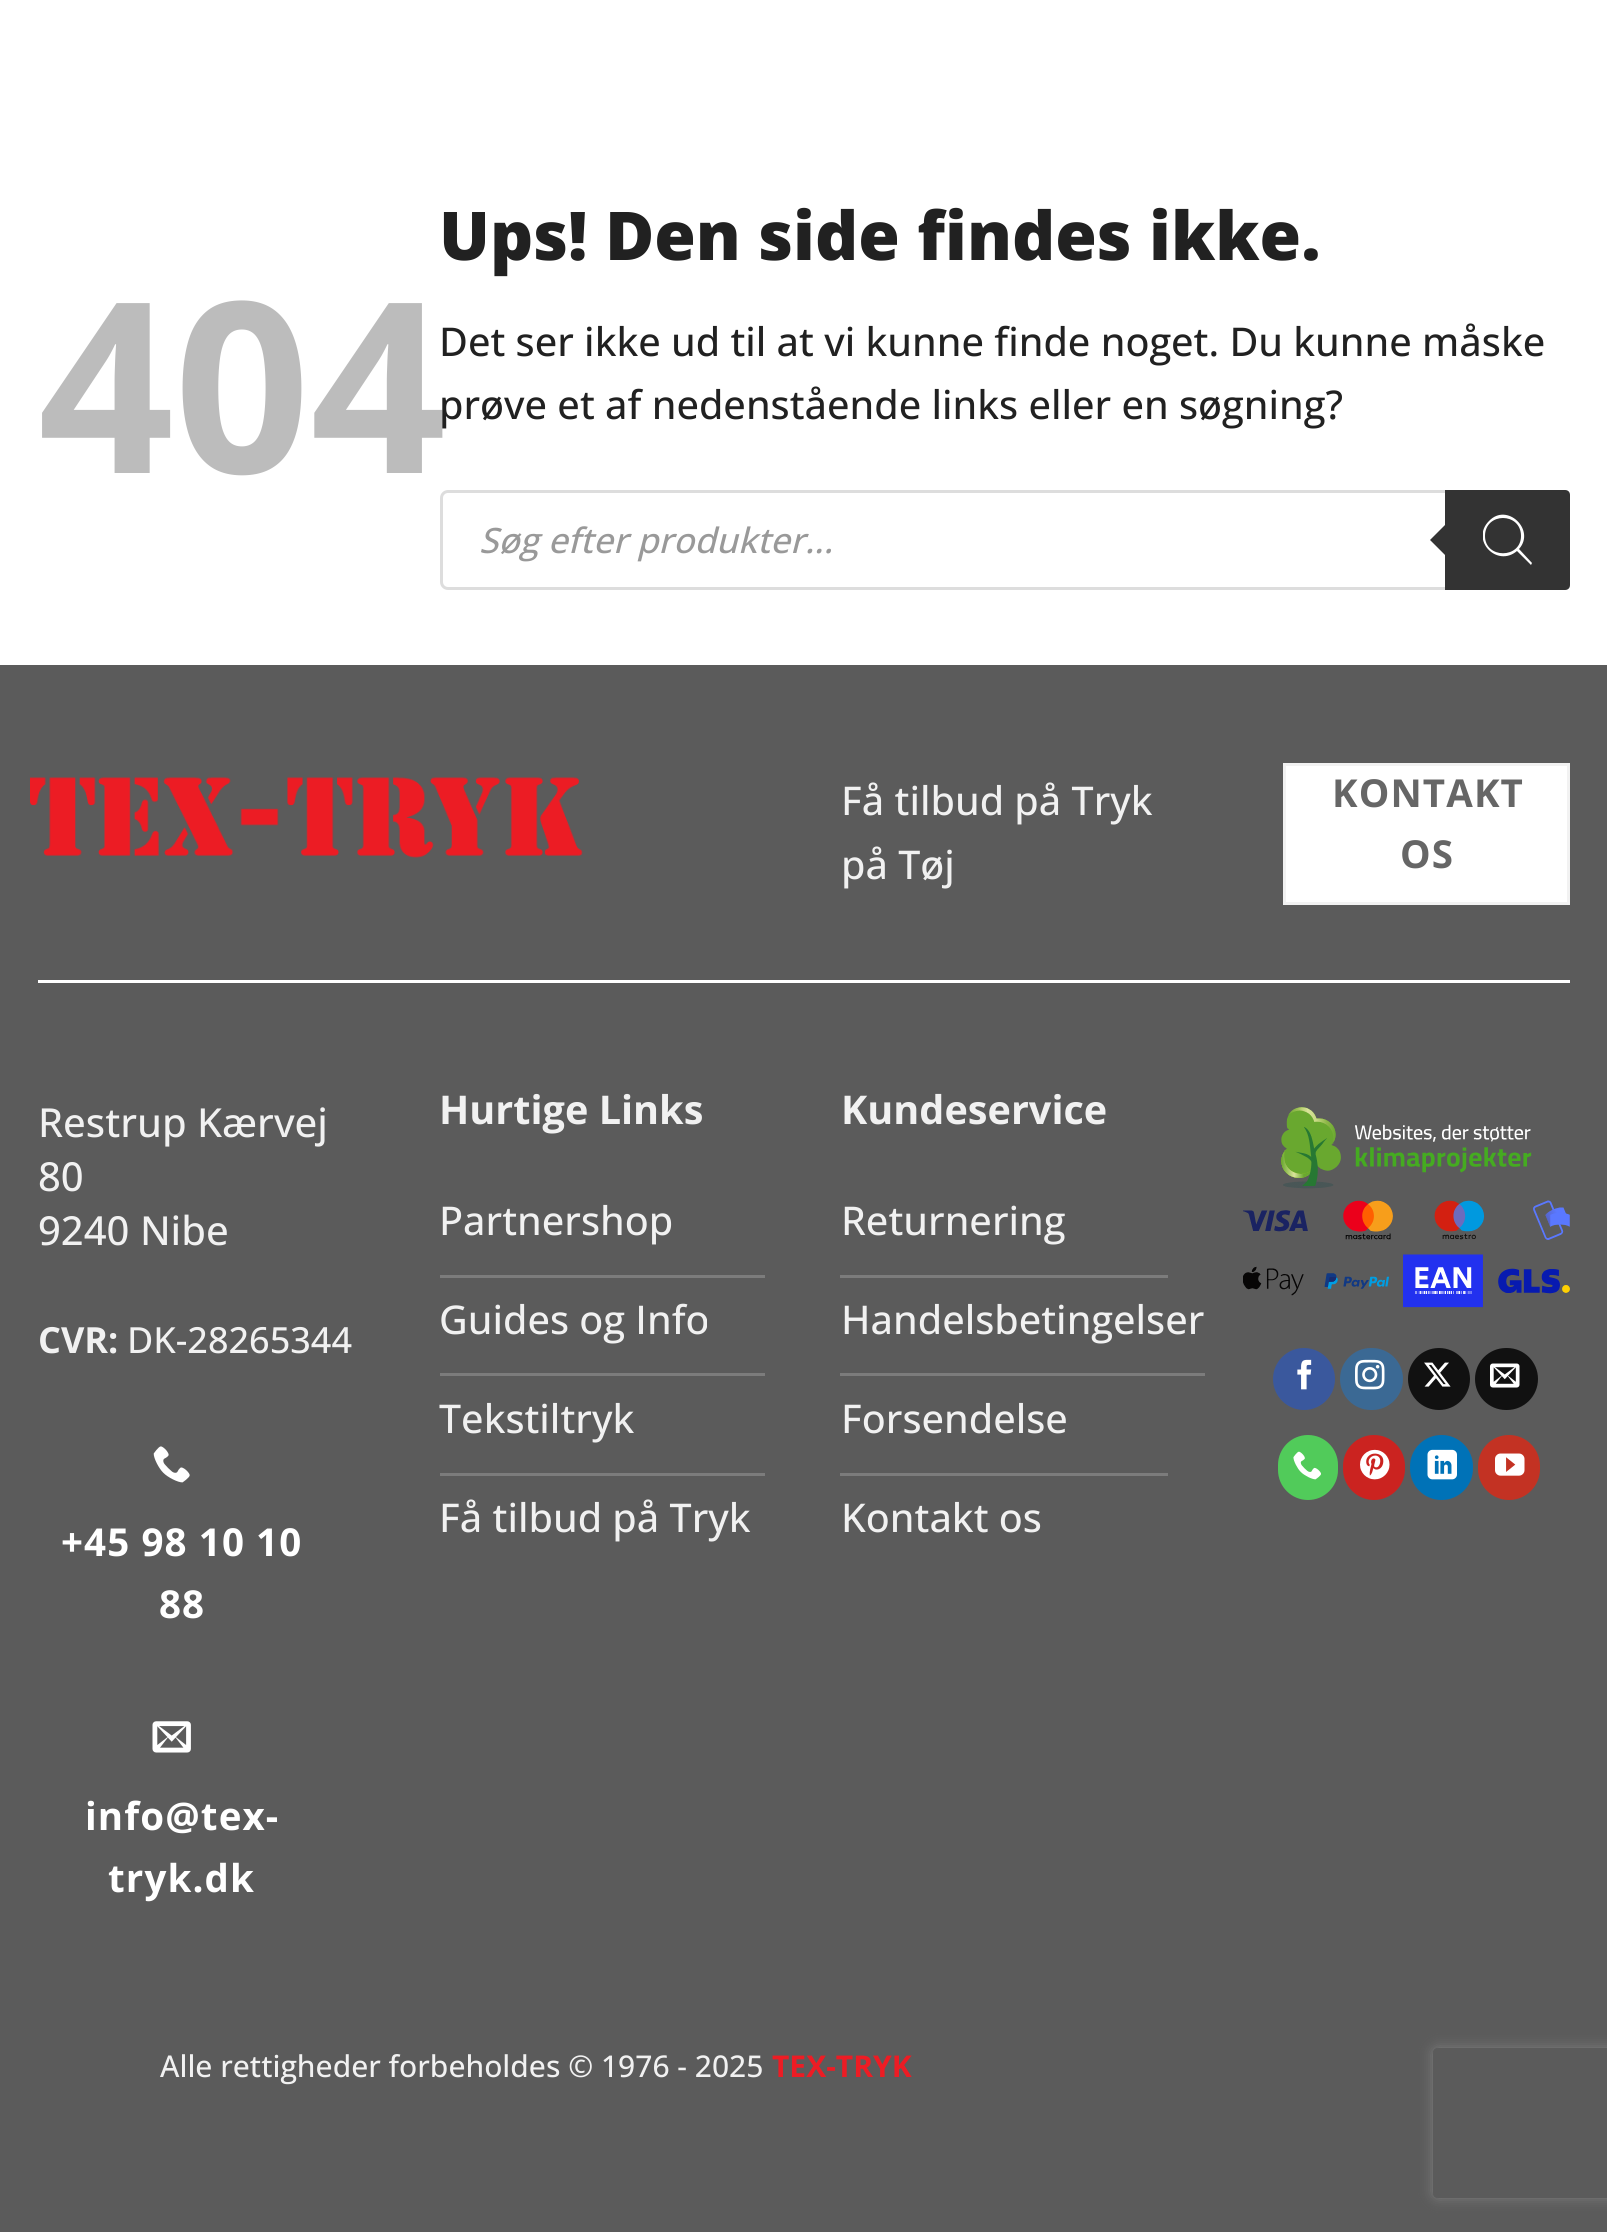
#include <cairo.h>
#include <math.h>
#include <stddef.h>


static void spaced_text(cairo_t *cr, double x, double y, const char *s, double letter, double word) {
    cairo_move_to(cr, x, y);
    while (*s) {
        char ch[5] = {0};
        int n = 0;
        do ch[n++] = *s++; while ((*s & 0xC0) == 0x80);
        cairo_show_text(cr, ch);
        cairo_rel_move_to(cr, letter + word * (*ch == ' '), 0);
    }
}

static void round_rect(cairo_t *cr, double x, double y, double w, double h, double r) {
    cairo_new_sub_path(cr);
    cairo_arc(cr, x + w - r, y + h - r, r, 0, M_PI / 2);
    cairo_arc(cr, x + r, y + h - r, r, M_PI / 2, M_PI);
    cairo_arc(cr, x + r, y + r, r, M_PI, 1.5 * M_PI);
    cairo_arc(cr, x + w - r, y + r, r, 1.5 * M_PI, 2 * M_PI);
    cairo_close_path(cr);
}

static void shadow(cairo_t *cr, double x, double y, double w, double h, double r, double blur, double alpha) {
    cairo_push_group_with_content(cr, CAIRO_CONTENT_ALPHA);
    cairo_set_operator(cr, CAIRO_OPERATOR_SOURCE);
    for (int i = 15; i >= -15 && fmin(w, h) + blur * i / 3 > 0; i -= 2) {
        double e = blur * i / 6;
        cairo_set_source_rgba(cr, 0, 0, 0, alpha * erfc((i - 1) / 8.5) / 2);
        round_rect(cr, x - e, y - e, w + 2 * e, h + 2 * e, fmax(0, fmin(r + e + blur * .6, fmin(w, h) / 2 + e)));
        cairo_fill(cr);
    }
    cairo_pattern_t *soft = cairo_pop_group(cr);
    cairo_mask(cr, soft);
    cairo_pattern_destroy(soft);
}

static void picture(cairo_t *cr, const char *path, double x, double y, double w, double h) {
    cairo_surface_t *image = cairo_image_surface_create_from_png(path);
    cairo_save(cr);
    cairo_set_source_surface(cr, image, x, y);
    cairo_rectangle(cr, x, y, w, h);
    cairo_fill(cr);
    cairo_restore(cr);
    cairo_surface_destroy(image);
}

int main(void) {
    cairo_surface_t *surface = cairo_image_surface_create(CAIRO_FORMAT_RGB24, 1607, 2232);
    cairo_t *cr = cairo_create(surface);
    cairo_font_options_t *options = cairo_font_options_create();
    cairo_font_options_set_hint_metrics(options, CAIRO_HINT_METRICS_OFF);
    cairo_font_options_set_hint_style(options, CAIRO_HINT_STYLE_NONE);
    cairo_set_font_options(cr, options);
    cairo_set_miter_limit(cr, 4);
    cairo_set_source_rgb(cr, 1, 1, 1);
    cairo_paint(cr);
    cairo_select_font_face(cr, "Open Sans", CAIRO_FONT_SLANT_NORMAL, CAIRO_FONT_WEIGHT_BOLD);
    cairo_set_font_size(cr, 238);
    cairo_set_source_rgb(cr, 0.737, 0.737, 0.737);
    cairo_move_to(cr, 38, 473);
    cairo_show_text(cr, "404");
    cairo_select_font_face(cr, "Open Sans ExtraBold", CAIRO_FONT_SLANT_NORMAL, CAIRO_FONT_WEIGHT_NORMAL);
    cairo_set_font_size(cr, 67.25);
    cairo_set_source_rgb(cr, 0.129, 0.129, 0.129);
    cairo_move_to(cr, 439, 260);
    cairo_show_text(cr, "Ups! Den side findes ikke.");
    cairo_select_font_face(cr, "Open Sans Medium", CAIRO_FONT_SLANT_NORMAL, CAIRO_FONT_WEIGHT_NORMAL);
    cairo_set_font_size(cr, 39.6);
    cairo_move_to(cr, 439, 356);
    cairo_show_text(cr, "Det ser ikke ud til at vi kunne finde noget. Du kunne måske");
    cairo_move_to(cr, 439, 419);
    cairo_show_text(cr, "prøve et af nedenstående links eller en søgning?");
    round_rect(cr, 441.5, 491.5, 1127, 97, 6.5);
    cairo_set_source_rgb(cr, 0.867, 0.867, 0.867);
    cairo_set_line_width(cr, 3);
    cairo_stroke(cr);
    cairo_select_font_face(cr, "Open Sans Medium", CAIRO_FONT_SLANT_ITALIC, CAIRO_FONT_WEIGHT_NORMAL);
    cairo_set_font_size(cr, 35);
    cairo_set_source_rgb(cr, 0.6, 0.6, 0.6);
    cairo_move_to(cr, 479, 553);
    cairo_show_text(cr, "Søg efter produkter...");
    cairo_set_source_rgb(cr, 0.2, 0.2, 0.2);
    cairo_new_path(cr);
    cairo_move_to(cr, 1445, 490);
    cairo_line_to(cr, 1565, 490);
    cairo_curve_to(cr, 1568, 490, 1570, 492, 1570, 495);
    cairo_line_to(cr, 1570, 585);
    cairo_curve_to(cr, 1570, 588, 1568, 590, 1565, 590);
    cairo_line_to(cr, 1445, 590);
    cairo_close_path(cr);
    cairo_fill(cr);
    cairo_new_path(cr);
    cairo_move_to(cr, 1450, 520);
    cairo_line_to(cr, 1450, 560);
    cairo_line_to(cr, 1430, 540);
    cairo_close_path(cr);
    cairo_fill(cr);
    cairo_save(cr);
    cairo_rectangle(cr, 1483, 508, 50, 65);
    cairo_clip(cr);
    cairo_set_source_rgb(cr, 1, 1, 1);
    cairo_new_path(cr);
    cairo_move_to(cr, 1532, 563);
    cairo_line_to(cr, 1519, 549);
    cairo_curve_to(cr, 1536, 530, 1507, 502, 1489, 521);
    cairo_curve_to(cr, 1470, 540, 1497, 568, 1517, 551);
    cairo_line_to(cr, 1531, 565);
    cairo_close_path(cr);
    cairo_move_to(cr, 1485, 536);
    cairo_curve_to(cr, 1485, 512, 1521, 512, 1521, 536);
    cairo_curve_to(cr, 1521, 559, 1485, 559, 1485, 536);
    cairo_close_path(cr);
    cairo_fill(cr);
    cairo_restore(cr);
    cairo_set_source_rgb(cr, 0.357, 0.357, 0.357);
    cairo_rectangle(cr, 0, 665, 1607, 1567);
    cairo_fill(cr);
    picture(cr, "img1.png", 30, 777, 553, 81);
    cairo_select_font_face(cr, "Open Sans Medium", CAIRO_FONT_SLANT_NORMAL, CAIRO_FONT_WEIGHT_NORMAL);
    cairo_set_font_size(cr, 39.6);
    cairo_set_source_rgb(cr, 0.945, 0.945, 0.945);
    cairo_move_to(cr, 841, 815);
    cairo_show_text(cr, "Få tilbud på Tryk");
    cairo_move_to(cr, 841, 879);
    cairo_show_text(cr, "på Tøj");
    cairo_set_source_rgb(cr, 1, 1, 1);
    cairo_rectangle(cr, 1284.5, 764.5, 284, 139);
    cairo_fill_preserve(cr);
    cairo_set_source_rgb(cr, 0.949, 0.949, 0.949);
    cairo_stroke(cr);
    cairo_select_font_face(cr, "Open Sans", CAIRO_FONT_SLANT_NORMAL, CAIRO_FONT_WEIGHT_BOLD);
    cairo_set_font_size(cr, 38.5);
    cairo_set_source_rgb(cr, 0.4, 0.4, 0.4);
    spaced_text(cr, 1332, 807, "KONTAKT", 1.1, 0);
    spaced_text(cr, 1400, 868, "OS", 1.1, 0);
    cairo_set_source_rgb(cr, 1, 1, 1);
    cairo_rectangle(cr, 38, 980, 1532, 3);
    cairo_fill(cr);
    cairo_select_font_face(cr, "Open Sans Medium", CAIRO_FONT_SLANT_NORMAL, CAIRO_FONT_WEIGHT_NORMAL);
    cairo_set_font_size(cr, 40);
    cairo_set_source_rgb(cr, 0.945, 0.945, 0.945);
    cairo_move_to(cr, 38, 1137);
    cairo_show_text(cr, "Restrup Kærvej");
    cairo_move_to(cr, 38, 1191);
    cairo_show_text(cr, "80");
    cairo_move_to(cr, 38, 1245);
    cairo_show_text(cr, "9240 Nibe");
    cairo_select_font_face(cr, "Open Sans", CAIRO_FONT_SLANT_NORMAL, CAIRO_FONT_WEIGHT_BOLD);
    cairo_set_font_size(cr, 36);
    cairo_move_to(cr, 38, 1353);
    cairo_show_text(cr, "CVR:");
    cairo_select_font_face(cr, "Open Sans Medium", CAIRO_FONT_SLANT_NORMAL, CAIRO_FONT_WEIGHT_NORMAL);
    cairo_move_to(cr, 127, 1353);
    cairo_show_text(cr, "DK-28265344");
    picture(cr, "img2.png", 153, 1446, 37, 37);
    cairo_select_font_face(cr, "Open Sans", CAIRO_FONT_SLANT_NORMAL, CAIRO_FONT_WEIGHT_BOLD);
    cairo_set_font_size(cr, 38.5);
    cairo_set_source_rgb(cr, 1, 1, 1);
    spaced_text(cr, 61, 1556, "+45 98 10 10", 1.1, 0);
    spaced_text(cr, 159, 1618, "88", 1.1, 0);
    picture(cr, "img3.png", 152, 1721, 39, 32);
    spaced_text(cr, 85, 1830, "info@tex-", 1.1, 0);
    spaced_text(cr, 108, 1892, "tryk.dk", 1.1, 0);
    cairo_set_font_size(cr, 39.6);
    cairo_set_source_rgb(cr, 0.945, 0.945, 0.945);
    cairo_move_to(cr, 439, 1124);
    cairo_show_text(cr, "Hurtige Links");
    cairo_set_source_rgb(cr, 0.486, 0.486, 0.486);
    cairo_rectangle(cr, 440, 1275, 325, 3);
    cairo_fill(cr);
    cairo_select_font_face(cr, "Open Sans Medium", CAIRO_FONT_SLANT_NORMAL, CAIRO_FONT_WEIGHT_NORMAL);
    cairo_set_source_rgb(cr, 0.945, 0.945, 0.945);
    cairo_move_to(cr, 439, 1235);
    cairo_show_text(cr, "Partnershop");
    cairo_set_source_rgb(cr, 0.486, 0.486, 0.486);
    cairo_rectangle(cr, 440, 1373, 325, 3);
    cairo_fill(cr);
    cairo_set_source_rgb(cr, 0.945, 0.945, 0.945);
    cairo_move_to(cr, 439, 1334);
    cairo_show_text(cr, "Guides og Info");
    cairo_set_source_rgb(cr, 0.486, 0.486, 0.486);
    cairo_rectangle(cr, 440, 1473, 325, 3);
    cairo_fill(cr);
    cairo_set_source_rgb(cr, 0.945, 0.945, 0.945);
    cairo_move_to(cr, 439, 1433);
    cairo_show_text(cr, "Tekstiltryk");
    cairo_move_to(cr, 439, 1532);
    cairo_show_text(cr, "Få tilbud på Tryk");
    cairo_select_font_face(cr, "Open Sans", CAIRO_FONT_SLANT_NORMAL, CAIRO_FONT_WEIGHT_BOLD);
    cairo_move_to(cr, 841, 1124);
    cairo_show_text(cr, "Kundeservice");
    cairo_set_source_rgb(cr, 0.486, 0.486, 0.486);
    cairo_rectangle(cr, 840, 1275, 328, 3);
    cairo_fill(cr);
    cairo_select_font_face(cr, "Open Sans Medium", CAIRO_FONT_SLANT_NORMAL, CAIRO_FONT_WEIGHT_NORMAL);
    cairo_set_source_rgb(cr, 0.945, 0.945, 0.945);
    cairo_move_to(cr, 841, 1235);
    cairo_show_text(cr, "Returnering");
    cairo_set_source_rgb(cr, 0.486, 0.486, 0.486);
    cairo_rectangle(cr, 840, 1373, 365, 3);
    cairo_fill(cr);
    cairo_set_source_rgb(cr, 0.945, 0.945, 0.945);
    cairo_move_to(cr, 841, 1334);
    cairo_show_text(cr, "Handelsbetingelser");
    cairo_set_source_rgb(cr, 0.486, 0.486, 0.486);
    cairo_rectangle(cr, 840, 1473, 328, 3);
    cairo_fill(cr);
    cairo_set_source_rgb(cr, 0.945, 0.945, 0.945);
    cairo_move_to(cr, 841, 1433);
    cairo_show_text(cr, "Forsendelse");
    cairo_move_to(cr, 841, 1532);
    cairo_show_text(cr, "Kontakt os");
    picture(cr, "img4.png", 1243, 1107, 327, 201);
    cairo_set_source_rgb(cr, 0.227, 0.345, 0.616);
    cairo_arc(cr, 1304, 1379, 29.5, 0, 2 * M_PI);
    cairo_fill_preserve(cr);
    cairo_stroke(cr);
    picture(cr, "img5.png", 1297, 1359, 15, 31);
    cairo_set_source_rgb(cr, 0.231, 0.412, 0.58);
    round_rect(cr, 1341.5, 1349.5, 60, 59, 29.5);
    cairo_fill_preserve(cr);
    cairo_stroke(cr);
    picture(cr, "img6.png", 1355, 1359, 30, 31);
    cairo_set_source_rgb(cr, 0.067, 0.067, 0.067);
    cairo_arc(cr, 1439, 1379, 29.5, 0, 2 * M_PI);
    cairo_fill_preserve(cr);
    cairo_stroke(cr);
    picture(cr, "img7.png", 1424, 1362, 27, 25);
    round_rect(cr, 1476.5, 1349.5, 60, 59, 29.5);
    cairo_fill_preserve(cr);
    cairo_stroke(cr);
    picture(cr, "img8.png", 1490, 1363, 30, 25);
    cairo_set_source_rgb(cr, 0.318, 0.796, 0.353);
    round_rect(cr, 1279.5, 1436.5, 57, 62, 28.5);
    cairo_fill_preserve(cr);
    cairo_stroke(cr);
    picture(cr, "img9.png", 1293, 1451, 28, 29);
    cairo_set_source_rgb(cr, 0.796, 0.137, 0.125);
    round_rect(cr, 1344.5, 1436.5, 59, 62, 29.5);
    cairo_fill_preserve(cr);
    cairo_stroke(cr);
    picture(cr, "img10.png", 1360, 1449, 30, 31);
    cairo_set_source_rgb(cr, 0, 0.447, 0.718);
    round_rect(cr, 1411.5, 1436.5, 60, 62, 30);
    cairo_fill_preserve(cr);
    cairo_stroke(cr);
    picture(cr, "img11.png", 1427, 1449, 30, 31);
    cairo_set_source_rgb(cr, 0.765, 0.196, 0.137);
    round_rect(cr, 1479.5, 1436.5, 59, 62, 29.5);
    cairo_fill_preserve(cr);
    cairo_stroke(cr);
    picture(cr, "img12.png", 1495, 1453, 30, 23);
    cairo_set_font_size(cr, 30);
    cairo_set_source_rgb(cr, 0.945, 0.945, 0.945);
    cairo_move_to(cr, 160, 2077);
    cairo_show_text(cr, "Alle rettigheder forbeholdes © 1976 - 2025");
    cairo_select_font_face(cr, "Open Sans", CAIRO_FONT_SLANT_NORMAL, CAIRO_FONT_WEIGHT_BOLD);
    cairo_set_source_rgb(cr, 0.929, 0.11, 0.141);
    cairo_move_to(cr, 772, 2077);
    cairo_show_text(cr, "TEX-TRYK");
    cairo_save(cr);
    cairo_set_fill_rule(cr, CAIRO_FILL_RULE_EVEN_ODD);
    cairo_new_path(cr);
    cairo_move_to(cr, 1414, 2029);
    cairo_line_to(cr, 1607, 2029);
    cairo_line_to(cr, 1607, 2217);
    cairo_line_to(cr, 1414, 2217);
    cairo_close_path(cr);
    cairo_move_to(cr, 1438, 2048);
    cairo_line_to(cr, 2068, 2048);
    cairo_curve_to(cr, 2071, 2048, 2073, 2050, 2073, 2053);
    cairo_line_to(cr, 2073, 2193);
    cairo_curve_to(cr, 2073, 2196, 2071, 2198, 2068, 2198);
    cairo_line_to(cr, 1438, 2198);
    cairo_curve_to(cr, 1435, 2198, 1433, 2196, 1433, 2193);
    cairo_line_to(cr, 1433, 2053);
    cairo_curve_to(cr, 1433, 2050, 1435, 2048, 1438, 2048);
    cairo_close_path(cr);
    cairo_clip(cr);
    cairo_set_source_rgb(cr, 0.502, 0.502, 0.502);
    shadow(cr, 1433, 2048, 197, 150, 5, 6, 1);
    cairo_restore(cr);
    cairo_surface_write_to_png(surface, "page.png");
    cairo_font_options_destroy(options);
    cairo_destroy(cr);
    cairo_surface_destroy(surface);
    return 0;
}
